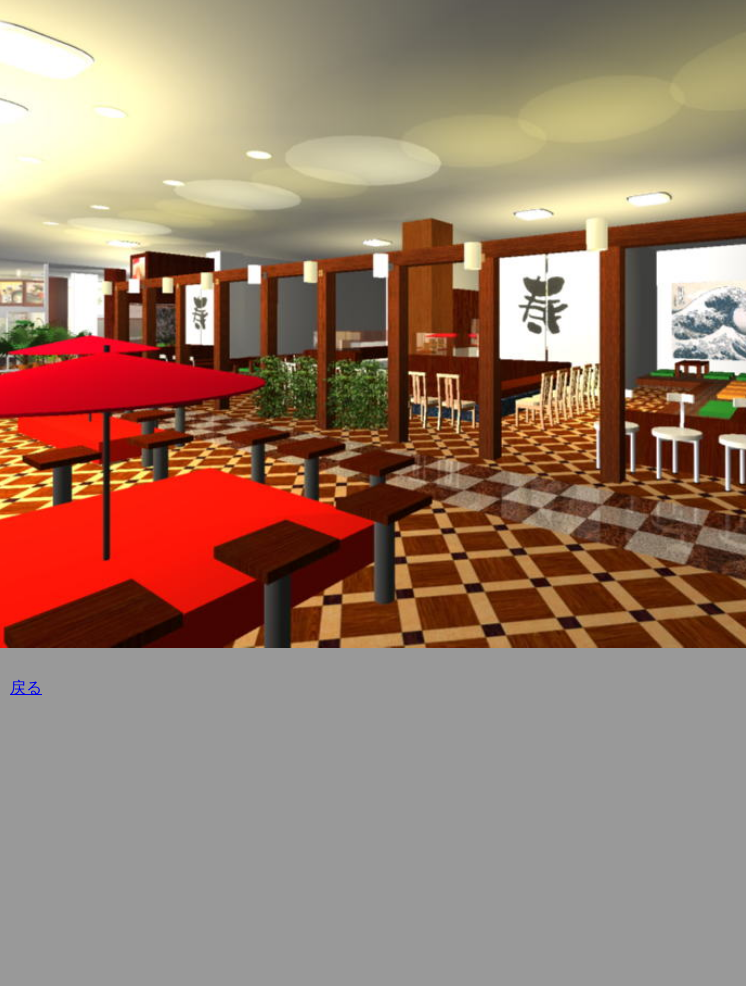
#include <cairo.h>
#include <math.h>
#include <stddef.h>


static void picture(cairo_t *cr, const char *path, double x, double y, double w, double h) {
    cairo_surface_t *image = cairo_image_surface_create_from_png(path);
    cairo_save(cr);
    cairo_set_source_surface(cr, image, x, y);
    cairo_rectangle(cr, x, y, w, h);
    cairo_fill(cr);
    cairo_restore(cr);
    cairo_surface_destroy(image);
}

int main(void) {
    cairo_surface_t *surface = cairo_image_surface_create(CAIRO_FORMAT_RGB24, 746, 986);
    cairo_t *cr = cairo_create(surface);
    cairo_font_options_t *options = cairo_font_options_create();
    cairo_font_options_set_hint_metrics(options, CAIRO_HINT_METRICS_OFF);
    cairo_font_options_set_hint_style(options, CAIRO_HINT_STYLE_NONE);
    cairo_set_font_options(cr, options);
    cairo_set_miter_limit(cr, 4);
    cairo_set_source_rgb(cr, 0.6, 0.6, 0.6);
    cairo_paint(cr);
    picture(cr, "img1.png", 0, 0, 746, 648);
    cairo_set_source_rgb(cr, 0, 0, 0.933);
    cairo_rectangle(cr, 10, 694, 32, 1);
    cairo_fill(cr);
    cairo_select_font_face(cr, "WenQuanYi Zen Hei Medium", CAIRO_FONT_SLANT_NORMAL, CAIRO_FONT_WEIGHT_NORMAL);
    cairo_set_font_size(cr, 16);
    cairo_move_to(cr, 10, 693);
    cairo_show_text(cr, "戻る");
    cairo_surface_write_to_png(surface, "page.png");
    cairo_font_options_destroy(options);
    cairo_destroy(cr);
    cairo_surface_destroy(surface);
    return 0;
}
